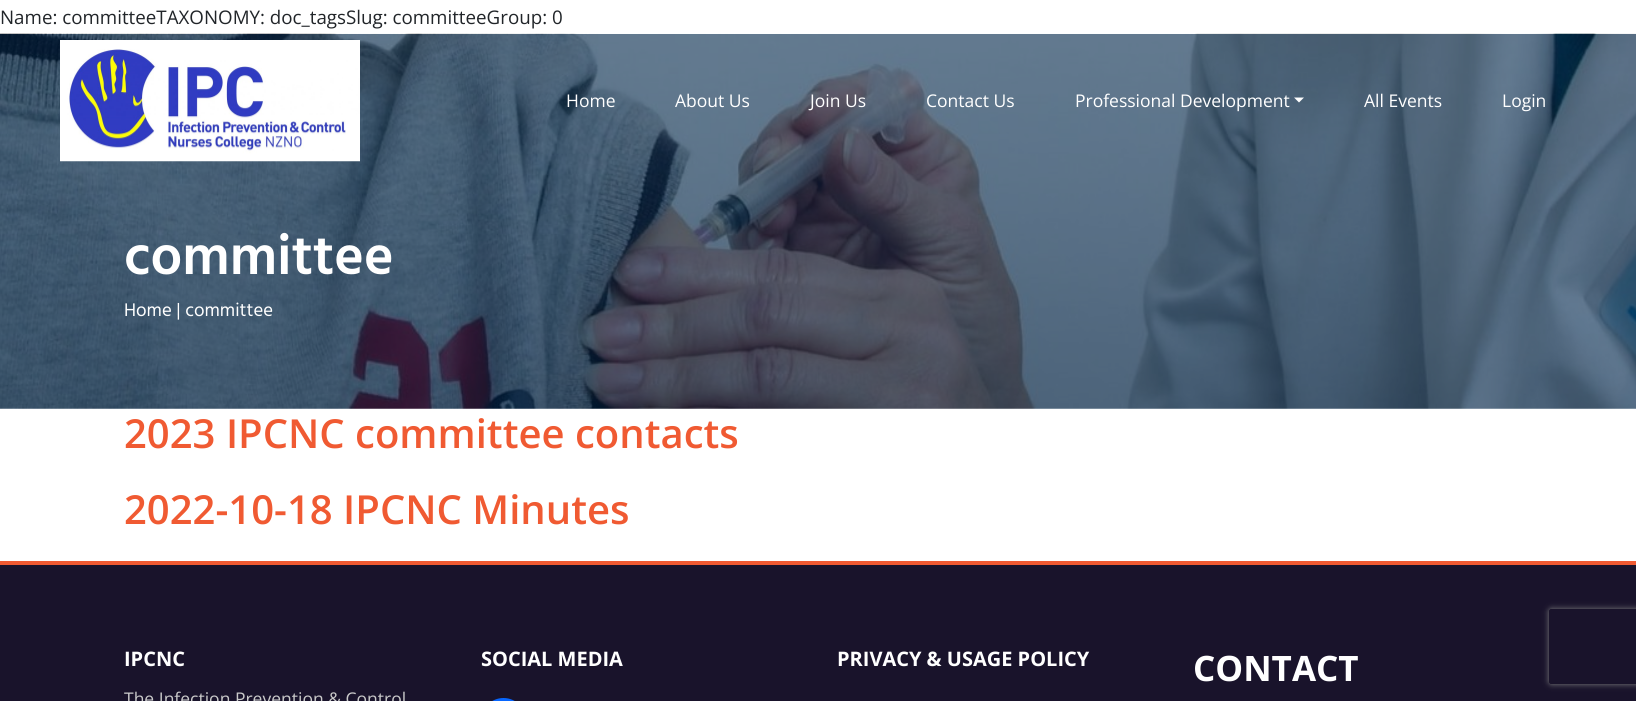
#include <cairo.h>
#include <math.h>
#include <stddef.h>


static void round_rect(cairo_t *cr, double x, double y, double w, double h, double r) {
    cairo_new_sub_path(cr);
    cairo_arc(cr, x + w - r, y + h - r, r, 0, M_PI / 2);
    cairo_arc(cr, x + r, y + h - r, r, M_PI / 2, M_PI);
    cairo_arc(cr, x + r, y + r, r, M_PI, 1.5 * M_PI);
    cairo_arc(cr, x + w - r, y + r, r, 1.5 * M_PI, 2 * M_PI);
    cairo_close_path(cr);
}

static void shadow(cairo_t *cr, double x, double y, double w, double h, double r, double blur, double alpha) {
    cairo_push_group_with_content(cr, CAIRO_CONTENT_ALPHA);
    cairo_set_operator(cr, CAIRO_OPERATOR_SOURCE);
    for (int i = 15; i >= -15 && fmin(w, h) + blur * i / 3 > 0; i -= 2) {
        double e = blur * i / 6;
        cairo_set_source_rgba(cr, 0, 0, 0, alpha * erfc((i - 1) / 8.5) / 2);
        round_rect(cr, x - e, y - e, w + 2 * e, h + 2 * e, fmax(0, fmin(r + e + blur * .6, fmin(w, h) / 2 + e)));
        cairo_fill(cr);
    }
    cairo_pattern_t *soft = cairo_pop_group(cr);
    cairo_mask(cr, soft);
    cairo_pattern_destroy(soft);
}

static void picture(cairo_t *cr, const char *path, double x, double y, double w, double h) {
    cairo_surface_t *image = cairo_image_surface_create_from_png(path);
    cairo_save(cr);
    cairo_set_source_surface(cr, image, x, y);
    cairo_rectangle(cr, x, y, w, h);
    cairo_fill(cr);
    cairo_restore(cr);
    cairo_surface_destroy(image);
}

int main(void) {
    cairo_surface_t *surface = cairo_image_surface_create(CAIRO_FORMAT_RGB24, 1636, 701);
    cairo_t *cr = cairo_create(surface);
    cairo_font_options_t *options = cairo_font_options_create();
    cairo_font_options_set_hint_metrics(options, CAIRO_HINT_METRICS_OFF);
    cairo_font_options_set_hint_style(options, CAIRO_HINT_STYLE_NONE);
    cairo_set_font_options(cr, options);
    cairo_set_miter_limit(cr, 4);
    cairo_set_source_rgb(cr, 1, 1, 1);
    cairo_paint(cr);
    cairo_select_font_face(cr, "Open Sans", CAIRO_FONT_SLANT_NORMAL, CAIRO_FONT_WEIGHT_NORMAL);
    cairo_set_font_size(cr, 18.75);
    cairo_set_source_rgb(cr, 0.129, 0.145, 0.161);
    cairo_move_to(cr, 0, 24);
    cairo_show_text(cr, "Name: committeeTAXONOMY: doc_tagsSlug: committeeGroup: 0");
    picture(cr, "img2.png", 0, 33, 1636, 376);
    picture(cr, "img1.png", 60, 40, 300, 122);
    cairo_set_font_size(cr, 17.5);
    cairo_set_source_rgb(cr, 1, 1, 1);
    cairo_move_to(cr, 566, 107);
    cairo_show_text(cr, "Home");
    cairo_move_to(cr, 675, 107);
    cairo_show_text(cr, "About Us");
    cairo_move_to(cr, 810, 107);
    cairo_show_text(cr, "Join Us");
    cairo_move_to(cr, 926, 107);
    cairo_show_text(cr, "Contact Us");
    cairo_move_to(cr, 1075, 107);
    cairo_show_text(cr, "Professional Development");
    cairo_new_path(cr);
    cairo_move_to(cr, 1294, 97.5);
    cairo_line_to(cr, 1304, 97.5);
    cairo_line_to(cr, 1299, 102.5);
    cairo_close_path(cr);
    cairo_fill(cr);
    cairo_move_to(cr, 1364, 107);
    cairo_show_text(cr, "All Events");
    cairo_move_to(cr, 1502, 107);
    cairo_show_text(cr, "Login");
    cairo_select_font_face(cr, "Hind SemiBold", CAIRO_FONT_SLANT_NORMAL, CAIRO_FONT_WEIGHT_NORMAL);
    cairo_set_font_size(cr, 56.25);
    cairo_move_to(cr, 124, 274);
    cairo_show_text(cr, "committee");
    cairo_select_font_face(cr, "Hind", CAIRO_FONT_SLANT_NORMAL, CAIRO_FONT_WEIGHT_NORMAL);
    cairo_set_font_size(cr, 18.75);
    cairo_move_to(cr, 124, 316);
    cairo_show_text(cr, "Home | committee");
    cairo_select_font_face(cr, "Open Sans SemiBold", CAIRO_FONT_SLANT_NORMAL, CAIRO_FONT_WEIGHT_NORMAL);
    cairo_set_font_size(cr, 40);
    cairo_set_source_rgb(cr, 0.941, 0.353, 0.196);
    cairo_move_to(cr, 124, 448);
    cairo_show_text(cr, "2023 IPCNC committee contacts");
    cairo_move_to(cr, 124, 524);
    cairo_show_text(cr, "2022-10-18 IPCNC Minutes");
    cairo_set_source_rgb(cr, 0.098, 0.078, 0.169);
    cairo_rectangle(cr, 0, 565, 1636, 136);
    cairo_fill(cr);
    cairo_set_source_rgb(cr, 0.941, 0.353, 0.196);
    cairo_rectangle(cr, 0, 561, 1636, 4);
    cairo_fill(cr);
    cairo_select_font_face(cr, "Open Sans", CAIRO_FONT_SLANT_NORMAL, CAIRO_FONT_WEIGHT_BOLD);
    cairo_set_font_size(cr, 20);
    cairo_set_source_rgb(cr, 1, 1, 1);
    cairo_move_to(cr, 124, 666);
    cairo_show_text(cr, "IPCNC");
    cairo_select_font_face(cr, "Open Sans", CAIRO_FONT_SLANT_NORMAL, CAIRO_FONT_WEIGHT_NORMAL);
    cairo_set_font_size(cr, 17.5);
    cairo_set_source_rgb(cr, 0.792, 0.792, 0.792);
    cairo_move_to(cr, 124, 705);
    cairo_show_text(cr, "The Infection Prevention & Control");
    cairo_select_font_face(cr, "Open Sans", CAIRO_FONT_SLANT_NORMAL, CAIRO_FONT_WEIGHT_BOLD);
    cairo_set_font_size(cr, 20);
    cairo_set_source_rgb(cr, 1, 1, 1);
    cairo_move_to(cr, 481, 666);
    cairo_show_text(cr, "SOCIAL MEDIA");
    cairo_set_source_rgb(cr, 0.031, 0.4, 1);
    round_rect(cr, 481, 698, 45, 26, 22.5);
    cairo_fill(cr);
    cairo_set_source_rgb(cr, 1, 1, 1);
    cairo_move_to(cr, 837, 666);
    cairo_show_text(cr, "PRIVACY & USAGE POLICY");
    cairo_set_font_size(cr, 35);
    cairo_move_to(cr, 1193, 681);
    cairo_show_text(cr, "CONTACT");
    cairo_save(cr);
    cairo_set_fill_rule(cr, CAIRO_FILL_RULE_EVEN_ODD);
    cairo_new_path(cr);
    cairo_move_to(cr, 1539, 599);
    cairo_line_to(cr, 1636, 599);
    cairo_line_to(cr, 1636, 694);
    cairo_line_to(cr, 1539, 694);
    cairo_close_path(cr);
    cairo_move_to(cr, 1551.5, 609);
    cairo_line_to(cr, 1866.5, 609);
    cairo_curve_to(cr, 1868, 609, 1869, 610, 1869, 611.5);
    cairo_line_to(cr, 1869, 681.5);
    cairo_curve_to(cr, 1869, 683, 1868, 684, 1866.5, 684);
    cairo_line_to(cr, 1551.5, 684);
    cairo_curve_to(cr, 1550, 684, 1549, 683, 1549, 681.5);
    cairo_line_to(cr, 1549, 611.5);
    cairo_curve_to(cr, 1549, 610, 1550, 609, 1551.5, 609);
    cairo_close_path(cr);
    cairo_clip(cr);
    cairo_set_source_rgb(cr, 0.502, 0.502, 0.502);
    shadow(cr, 1549, 609, 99, 75, 2.5, 3, 1);
    cairo_restore(cr);
    cairo_surface_write_to_png(surface, "page.png");
    cairo_font_options_destroy(options);
    cairo_destroy(cr);
    cairo_surface_destroy(surface);
    return 0;
}
